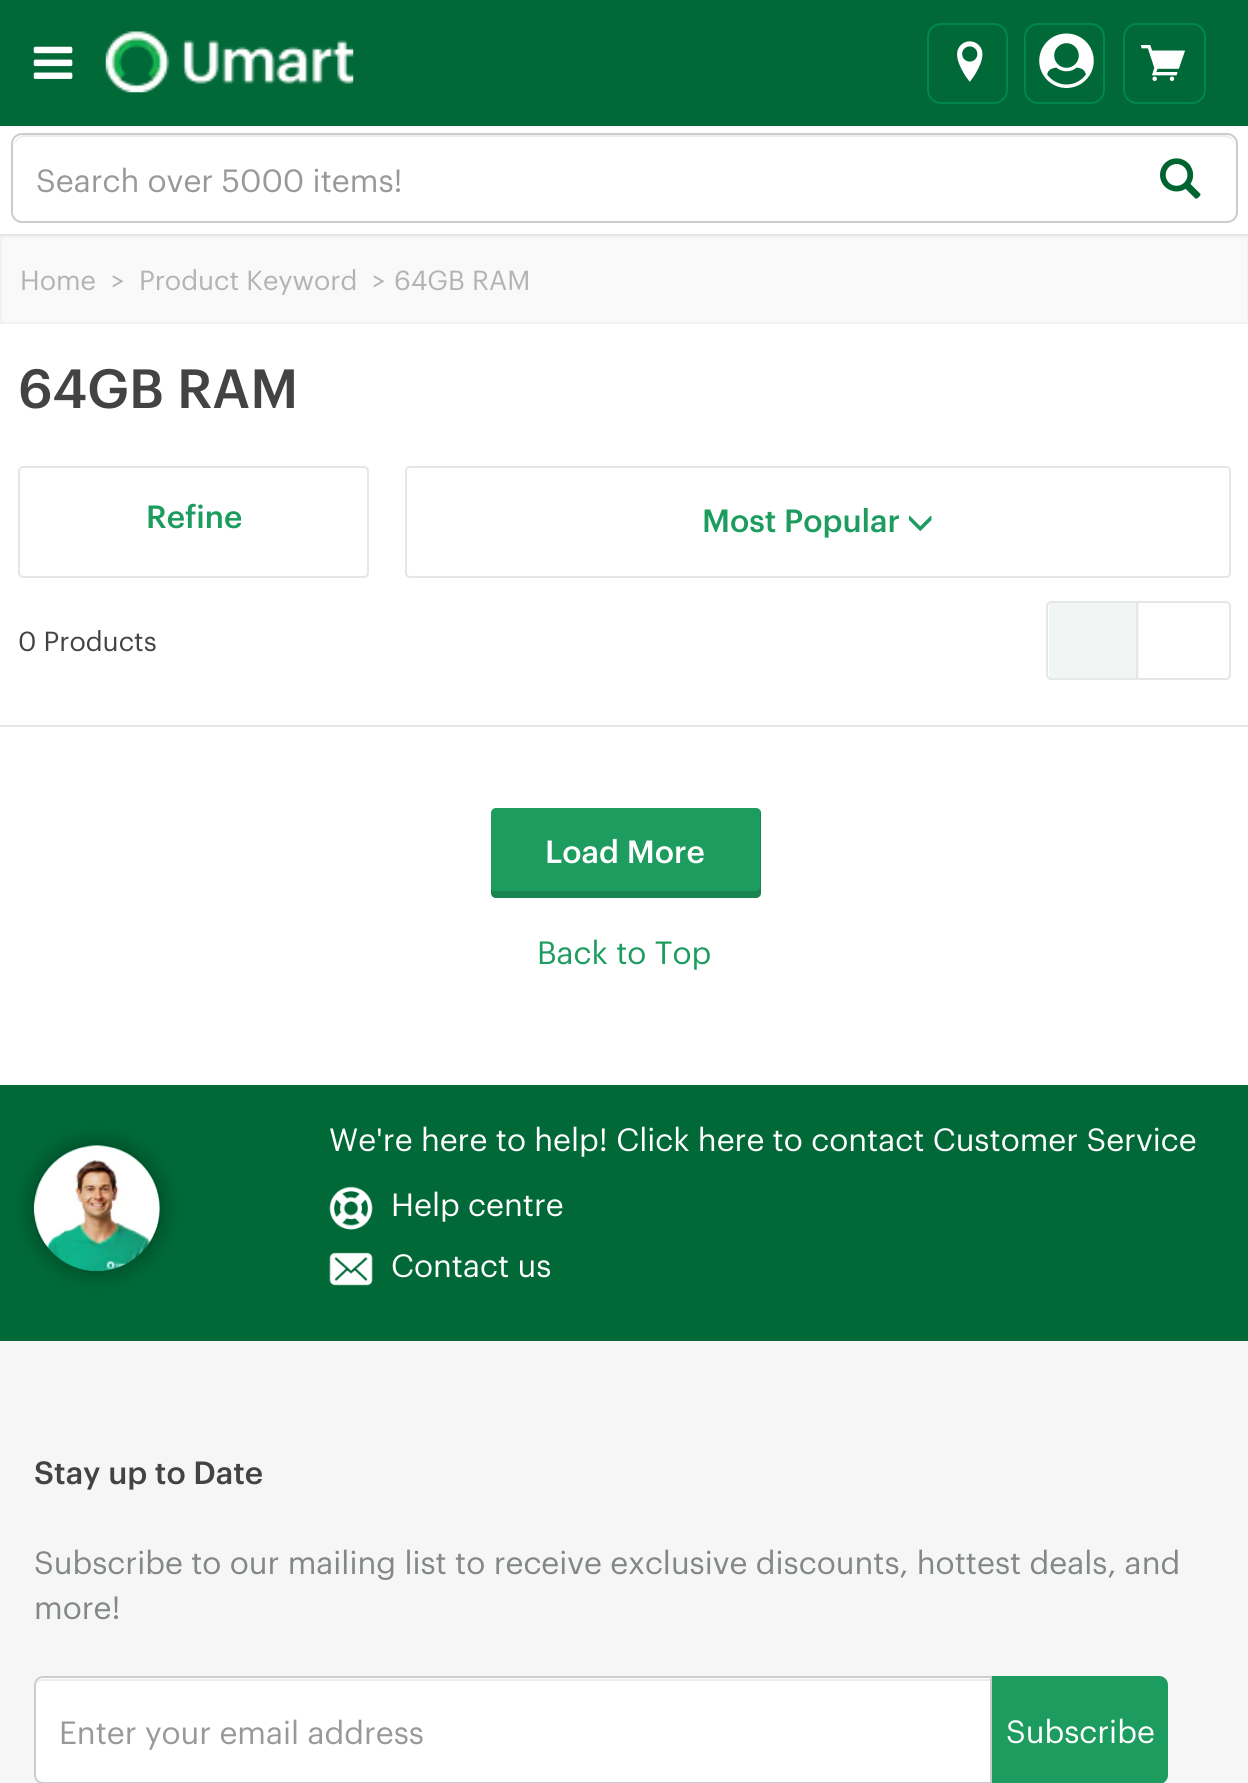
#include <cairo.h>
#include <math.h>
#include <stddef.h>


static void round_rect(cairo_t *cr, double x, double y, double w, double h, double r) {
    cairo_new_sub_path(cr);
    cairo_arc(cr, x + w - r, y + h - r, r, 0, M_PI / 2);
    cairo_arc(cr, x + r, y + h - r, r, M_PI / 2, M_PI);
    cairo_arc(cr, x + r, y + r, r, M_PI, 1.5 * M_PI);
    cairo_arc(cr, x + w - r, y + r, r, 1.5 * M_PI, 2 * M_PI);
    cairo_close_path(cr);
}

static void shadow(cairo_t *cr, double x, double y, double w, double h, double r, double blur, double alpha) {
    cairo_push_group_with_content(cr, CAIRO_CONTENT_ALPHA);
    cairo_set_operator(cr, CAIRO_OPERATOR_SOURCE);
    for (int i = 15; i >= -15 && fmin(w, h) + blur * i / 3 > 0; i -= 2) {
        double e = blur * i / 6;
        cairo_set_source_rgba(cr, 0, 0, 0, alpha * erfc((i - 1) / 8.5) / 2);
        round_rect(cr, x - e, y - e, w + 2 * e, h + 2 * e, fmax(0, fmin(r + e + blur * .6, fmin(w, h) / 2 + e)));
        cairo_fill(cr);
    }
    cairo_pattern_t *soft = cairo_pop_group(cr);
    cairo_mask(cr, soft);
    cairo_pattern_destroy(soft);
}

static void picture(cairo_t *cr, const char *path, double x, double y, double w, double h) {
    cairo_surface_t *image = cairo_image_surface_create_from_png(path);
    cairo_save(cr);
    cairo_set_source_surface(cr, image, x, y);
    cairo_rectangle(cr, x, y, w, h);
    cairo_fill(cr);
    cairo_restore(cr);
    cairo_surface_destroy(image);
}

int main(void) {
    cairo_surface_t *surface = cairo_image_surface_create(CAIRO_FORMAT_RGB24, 1248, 1783);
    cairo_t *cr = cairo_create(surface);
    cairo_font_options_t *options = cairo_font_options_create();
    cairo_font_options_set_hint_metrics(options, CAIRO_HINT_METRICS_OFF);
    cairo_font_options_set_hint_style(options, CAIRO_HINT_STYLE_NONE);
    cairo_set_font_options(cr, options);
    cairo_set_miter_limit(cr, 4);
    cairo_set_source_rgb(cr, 1, 1, 1);
    cairo_paint(cr);
    cairo_set_source_rgb(cr, 0, 0.412, 0.216);
    cairo_rectangle(cr, 0, 0, 1248, 126);
    cairo_fill(cr);
    picture(cr, "img1.png", 33, 46, 40, 33);
    picture(cr, "img2.png", 105, 31, 249, 62);
    round_rect(cr, 928, 24, 79, 79, 13);
    cairo_set_source_rgb(cr, 0, 0.529, 0.298);
    cairo_stroke(cr);
    picture(cr, "img3.png", 957, 41, 26, 41);
    round_rect(cr, 1025, 24, 79, 79, 13);
    cairo_stroke(cr);
    picture(cr, "img4.png", 1039, 33, 55, 55);
    round_rect(cr, 1124, 24, 81, 79, 13);
    cairo_stroke(cr);
    picture(cr, "img5.png", 1140, 45, 45, 36);
    cairo_set_source_rgb(cr, 0.902, 0.902, 0.902);
    cairo_rectangle(cr, 0, 234, 1248, 2);
    cairo_fill(cr);
    round_rect(cr, 12, 134, 1225, 88, 10);
    cairo_set_source_rgb(cr, 0.8, 0.8, 0.8);
    cairo_stroke(cr);
    cairo_set_source_rgb(cr, 0.925, 0.925, 0.925);
    cairo_new_path(cr);
    cairo_move_to(cr, 25, 137);
    cairo_line_to(cr, 1224, 137);
    cairo_curve_to(cr, 1230, 137, 1235, 142, 1235, 148);
    cairo_curve_to(cr, 1235, 141, 1231, 135, 1224, 135);
    cairo_line_to(cr, 25, 135);
    cairo_curve_to(cr, 18, 135, 14, 141, 14, 148);
    cairo_curve_to(cr, 14, 142, 19, 137, 25, 137);
    cairo_close_path(cr);
    cairo_fill(cr);
    cairo_select_font_face(cr, "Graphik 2", CAIRO_FONT_SLANT_NORMAL, CAIRO_FONT_WEIGHT_NORMAL);
    cairo_set_font_size(cr, 31.5);
    cairo_set_source_rgb(cr, 0.6, 0.6, 0.6);
    cairo_move_to(cr, 36, 192);
    cairo_show_text(cr, "Search over 5000 items!");
    picture(cr, "img6.png", 1160, 158, 41, 41);
    cairo_set_source_rgb(cr, 0.973, 0.973, 0.973);
    cairo_rectangle(cr, 1, 237, 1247, 86);
    cairo_fill_preserve(cr);
    cairo_set_source_rgb(cr, 0.949, 0.949, 0.949);
    cairo_stroke(cr);
    cairo_select_font_face(cr, "Graphik", CAIRO_FONT_SLANT_NORMAL, CAIRO_FONT_WEIGHT_NORMAL);
    cairo_set_font_size(cr, 27);
    cairo_set_source_rgb(cr, 0.702, 0.702, 0.702);
    cairo_move_to(cr, 20, 290);
    cairo_show_text(cr, "Home");
    cairo_move_to(cr, 111, 290);
    cairo_show_text(cr, ">");
    cairo_move_to(cr, 139, 290);
    cairo_show_text(cr, "Product Keyword");
    cairo_move_to(cr, 372, 290);
    cairo_show_text(cr, ">");
    cairo_move_to(cr, 394, 290);
    cairo_show_text(cr, "64GB RAM");
    cairo_select_font_face(cr, "Graphik Medium", CAIRO_FONT_SLANT_NORMAL, CAIRO_FONT_WEIGHT_NORMAL);
    cairo_set_font_size(cr, 54);
    cairo_set_source_rgb(cr, 0.263, 0.263, 0.263);
    cairo_move_to(cr, 18, 408);
    cairo_show_text(cr, "64GB RAM");
    round_rect(cr, 19, 467, 349, 110, 4);
    cairo_set_source_rgb(cr, 0.902, 0.902, 0.902);
    cairo_stroke(cr);
    cairo_set_font_size(cr, 31.5);
    cairo_set_source_rgb(cr, 0.11, 0.612, 0.369);
    cairo_move_to(cr, 146, 528);
    cairo_show_text(cr, "Refine");
    round_rect(cr, 406, 467, 824, 110, 4);
    cairo_set_source_rgb(cr, 0.902, 0.902, 0.902);
    cairo_stroke(cr);
    cairo_set_source_rgb(cr, 0.11, 0.612, 0.369);
    cairo_move_to(cr, 702, 532);
    cairo_show_text(cr, "Most Popular");
    picture(cr, "img7.png", 909, 515, 23, 16);
    cairo_select_font_face(cr, "Graphik", CAIRO_FONT_SLANT_NORMAL, CAIRO_FONT_WEIGHT_NORMAL);
    cairo_set_font_size(cr, 27);
    cairo_set_source_rgb(cr, 0.263, 0.263, 0.263);
    cairo_move_to(cr, 18, 651);
    cairo_show_text(cr, "0 Products");
    round_rect(cr, 1047, 602, 183, 77, 4);
    cairo_set_source_rgb(cr, 0.902, 0.902, 0.902);
    cairo_stroke(cr);
    cairo_set_source_rgba(cr, 0.894, 0.929, 0.914, 0.5);
    cairo_rectangle(cr, 1049, 603, 90, 77);
    cairo_fill(cr);
    cairo_set_source_rgb(cr, 0.902, 0.902, 0.902);
    cairo_rectangle(cr, 1136, 603, 2, 77);
    cairo_fill(cr);
    cairo_rectangle(cr, 0, 725, 1248, 2);
    cairo_fill(cr);
    cairo_set_source_rgb(cr, 0.11, 0.612, 0.369);
    round_rect(cr, 491, 808, 270, 90, 5);
    cairo_fill(cr);
    cairo_set_source_rgba(cr, 0, 0, 0, 0.15);
    cairo_new_path(cr);
    cairo_move_to(cr, 491, 889);
    cairo_line_to(cr, 491, 893);
    cairo_curve_to(cr, 491, 896, 493, 898, 496, 898);
    cairo_line_to(cr, 756, 898);
    cairo_curve_to(cr, 759, 898, 761, 896, 761, 893);
    cairo_line_to(cr, 761, 813);
    cairo_curve_to(cr, 761, 812, 761, 811, 760, 810);
    cairo_line_to(cr, 760, 886);
    cairo_curve_to(cr, 760, 889, 758, 891, 756, 891);
    cairo_line_to(cr, 495, 891);
    cairo_curve_to(cr, 494, 891, 492, 890, 491, 889);
    cairo_close_path(cr);
    cairo_fill(cr);
    cairo_select_font_face(cr, "Graphik Medium", CAIRO_FONT_SLANT_NORMAL, CAIRO_FONT_WEIGHT_NORMAL);
    cairo_set_font_size(cr, 31.5);
    cairo_set_source_rgb(cr, 1, 1, 1);
    cairo_move_to(cr, 545, 863);
    cairo_show_text(cr, "Load More");
    cairo_select_font_face(cr, "Graphik", CAIRO_FONT_SLANT_NORMAL, CAIRO_FONT_WEIGHT_NORMAL);
    cairo_set_source_rgb(cr, 0.11, 0.612, 0.369);
    cairo_move_to(cr, 537, 964);
    cairo_show_text(cr, "Back to Top");
    cairo_set_source_rgb(cr, 0, 0.412, 0.216);
    cairo_rectangle(cr, 0, 1085, 1248, 256);
    cairo_fill(cr);
    cairo_save(cr);
    cairo_set_fill_rule(cr, CAIRO_FILL_RULE_EVEN_ODD);
    cairo_new_path(cr);
    cairo_move_to(cr, 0, 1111);
    cairo_line_to(cr, 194, 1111);
    cairo_line_to(cr, 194, 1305);
    cairo_line_to(cr, 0, 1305);
    cairo_close_path(cr);
    cairo_move_to(cr, 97, 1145);
    cairo_curve_to(cr, 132, 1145, 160, 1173, 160, 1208);
    cairo_curve_to(cr, 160, 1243, 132, 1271, 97, 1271);
    cairo_curve_to(cr, 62, 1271, 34, 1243, 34, 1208);
    cairo_curve_to(cr, 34, 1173, 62, 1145, 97, 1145);
    cairo_close_path(cr);
    cairo_clip(cr);
    cairo_set_source_rgb(cr, 0, 0, 0);
    shadow(cr, 34, 1145, 126, 126, 63, 11, 0.4);
    cairo_restore(cr);
    picture(cr, "img8.png", 33, 1145, 127, 127);
    cairo_set_source_rgb(cr, 1, 1, 1);
    cairo_move_to(cr, 329, 1151);
    cairo_show_text(cr, "We're here to help! Click here to contact Customer Service");
    picture(cr, "img9.png", 329, 1186, 44, 44);
    cairo_move_to(cr, 391, 1216);
    cairo_show_text(cr, "Help centre");
    picture(cr, "img10.png", 329, 1252, 44, 34);
    cairo_move_to(cr, 391, 1277);
    cairo_show_text(cr, "Contact us");
    cairo_set_source_rgb(cr, 0.961, 0.961, 0.961);
    cairo_rectangle(cr, 0, 1341, 1248, 442);
    cairo_fill(cr);
    cairo_select_font_face(cr, "Graphik Medium", CAIRO_FONT_SLANT_NORMAL, CAIRO_FONT_WEIGHT_NORMAL);
    cairo_set_source_rgb(cr, 0.263, 0.263, 0.263);
    cairo_move_to(cr, 34, 1484);
    cairo_show_text(cr, "Stay up to Date");
    cairo_select_font_face(cr, "Graphik", CAIRO_FONT_SLANT_NORMAL, CAIRO_FONT_WEIGHT_NORMAL);
    cairo_set_source_rgb(cr, 0.51, 0.533, 0.518);
    cairo_move_to(cr, 34, 1574);
    cairo_show_text(cr, "Subscribe to our mailing list to receive exclusive discounts, hottest deals, and");
    cairo_move_to(cr, 34, 1619);
    cairo_show_text(cr, "more!");
    cairo_set_source_rgb(cr, 1, 1, 1);
    cairo_new_path(cr);
    cairo_move_to(cr, 43, 1676);
    cairo_line_to(cr, 992, 1676);
    cairo_line_to(cr, 992, 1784);
    cairo_line_to(cr, 43, 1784);
    cairo_curve_to(cr, 38, 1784, 34, 1780, 34, 1775);
    cairo_line_to(cr, 34, 1685);
    cairo_curve_to(cr, 34, 1680, 38, 1676, 43, 1676);
    cairo_close_path(cr);
    cairo_fill(cr);
    cairo_set_source_rgb(cr, 0.925, 0.925, 0.925);
    cairo_new_path(cr);
    cairo_move_to(cr, 43, 1681);
    cairo_line_to(cr, 990, 1681);
    cairo_line_to(cr, 990, 1679);
    cairo_line_to(cr, 43, 1679);
    cairo_curve_to(cr, 38, 1679, 36, 1684, 36, 1688);
    cairo_curve_to(cr, 36, 1684, 39, 1681, 43, 1681);
    cairo_close_path(cr);
    cairo_fill(cr);
    cairo_new_path(cr);
    cairo_move_to(cr, 43, 1677);
    cairo_line_to(cr, 991, 1677);
    cairo_line_to(cr, 991, 1783);
    cairo_line_to(cr, 43, 1783);
    cairo_curve_to(cr, 38.5, 1783, 35, 1779.5, 35, 1775);
    cairo_line_to(cr, 35, 1685);
    cairo_curve_to(cr, 35, 1680.5, 38.5, 1677, 43, 1677);
    cairo_close_path(cr);
    cairo_set_source_rgb(cr, 0.8, 0.8, 0.8);
    cairo_stroke(cr);
    cairo_select_font_face(cr, "Graphik 2", CAIRO_FONT_SLANT_NORMAL, CAIRO_FONT_WEIGHT_NORMAL);
    cairo_set_source_rgb(cr, 0.6, 0.6, 0.6);
    cairo_move_to(cr, 59, 1744);
    cairo_show_text(cr, "Enter your email address");
    cairo_set_source_rgb(cr, 0.11, 0.612, 0.369);
    cairo_new_path(cr);
    cairo_move_to(cr, 993, 1677);
    cairo_line_to(cr, 1159, 1677);
    cairo_curve_to(cr, 1163.5, 1677, 1167, 1680.5, 1167, 1685);
    cairo_line_to(cr, 1167, 1775);
    cairo_curve_to(cr, 1167, 1779.5, 1163.5, 1783, 1159, 1783);
    cairo_line_to(cr, 993, 1783);
    cairo_close_path(cr);
    cairo_fill_preserve(cr);
    cairo_stroke(cr);
    cairo_set_source_rgb(cr, 1, 1, 1);
    cairo_move_to(cr, 1006, 1743);
    cairo_show_text(cr, "Subscribe");
    cairo_surface_write_to_png(surface, "page.png");
    cairo_font_options_destroy(options);
    cairo_destroy(cr);
    cairo_surface_destroy(surface);
    return 0;
}
